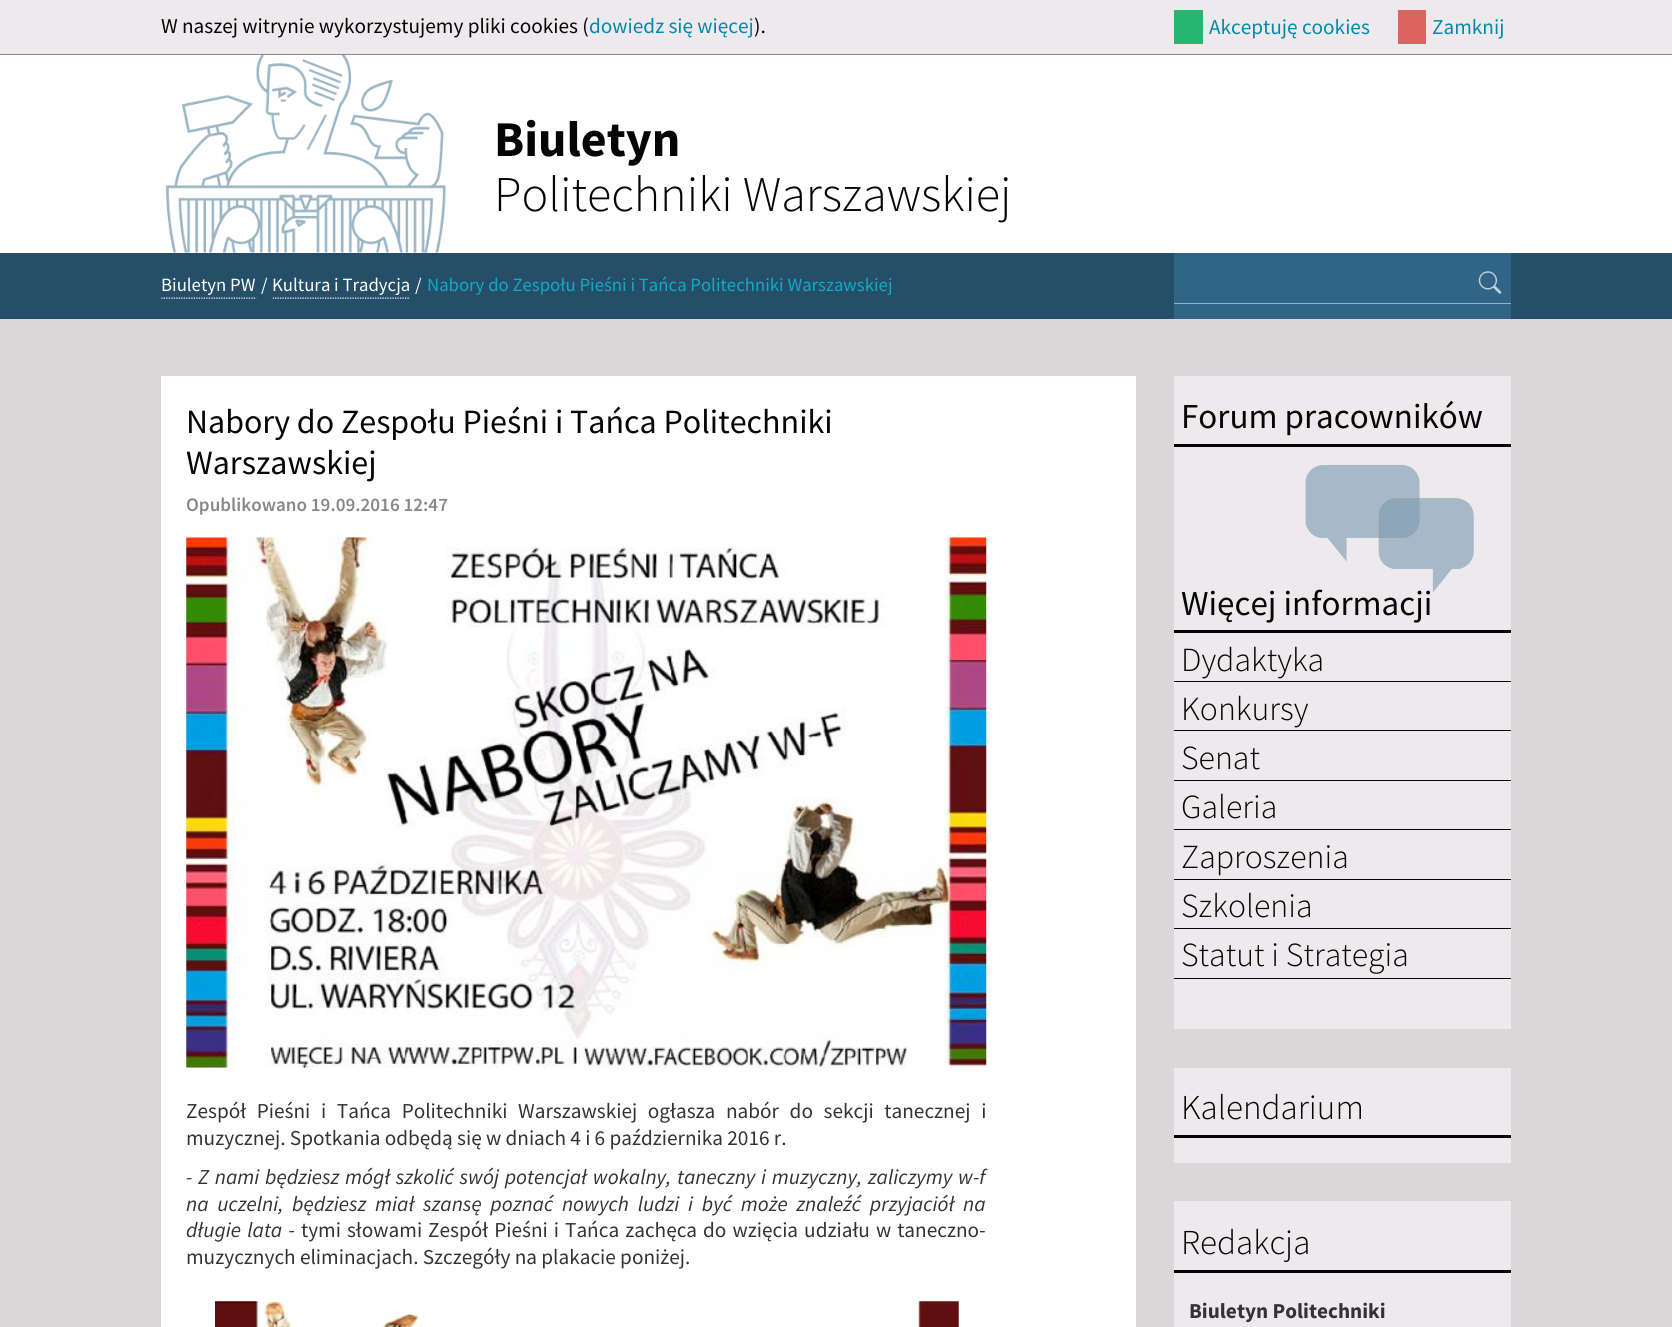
#include <cairo.h>
#include <math.h>
#include <stddef.h>


static void spaced_text(cairo_t *cr, double x, double y, const char *s, double letter, double word) {
    cairo_move_to(cr, x, y);
    while (*s) {
        char ch[5] = {0};
        int n = 0;
        do ch[n++] = *s++; while ((*s & 0xC0) == 0x80);
        cairo_show_text(cr, ch);
        cairo_rel_move_to(cr, letter + word * (*ch == ' '), 0);
    }
}

static void picture(cairo_t *cr, const char *path, double x, double y, double w, double h) {
    cairo_surface_t *image = cairo_image_surface_create_from_png(path);
    cairo_save(cr);
    cairo_set_source_surface(cr, image, x, y);
    cairo_rectangle(cr, x, y, w, h);
    cairo_fill(cr);
    cairo_restore(cr);
    cairo_surface_destroy(image);
}

int main(void) {
    cairo_surface_t *surface = cairo_image_surface_create(CAIRO_FORMAT_RGB24, 1672, 1327);
    cairo_t *cr = cairo_create(surface);
    cairo_font_options_t *options = cairo_font_options_create();
    cairo_font_options_set_hint_metrics(options, CAIRO_HINT_METRICS_OFF);
    cairo_font_options_set_hint_style(options, CAIRO_HINT_STYLE_NONE);
    cairo_set_font_options(cr, options);
    cairo_set_miter_limit(cr, 4);
    cairo_set_source_rgb(cr, 0.855, 0.843, 0.851);
    cairo_paint(cr);
    cairo_set_source_rgb(cr, 0.929, 0.914, 0.922);
    cairo_rectangle(cr, 0, 0, 1672, 54);
    cairo_fill(cr);
    cairo_set_source_rgb(cr, 0.533, 0.533, 0.533);
    cairo_rectangle(cr, 0, 54, 1672, 1);
    cairo_fill(cr);
    cairo_select_font_face(cr, "Source Sans Pro", CAIRO_FONT_SLANT_NORMAL, CAIRO_FONT_WEIGHT_NORMAL);
    cairo_set_font_size(cr, 21.25);
    cairo_set_source_rgb(cr, 0.016, 0.02, 0.02);
    cairo_move_to(cr, 161, 33);
    cairo_show_text(cr, "W naszej witrynie wykorzystujemy pliki cookies (");
    cairo_set_source_rgb(cr, 0, 0.541, 0.671);
    cairo_move_to(cr, 589, 33);
    cairo_show_text(cr, "dowiedz się więcej");
    cairo_set_source_rgb(cr, 0.016, 0.02, 0.02);
    cairo_move_to(cr, 754, 33);
    cairo_show_text(cr, ").");
    cairo_set_source_rgb(cr, 0.145, 0.714, 0.447);
    cairo_rectangle(cr, 1174, 10, 29, 34);
    cairo_fill(cr);
    cairo_set_source_rgb(cr, 0, 0.541, 0.671);
    cairo_move_to(cr, 1209, 34);
    cairo_show_text(cr, "Akceptuję cookies");
    cairo_set_source_rgb(cr, 0.867, 0.388, 0.373);
    cairo_rectangle(cr, 1398, 10, 28, 34);
    cairo_fill(cr);
    cairo_set_source_rgb(cr, 0, 0.541, 0.671);
    cairo_move_to(cr, 1432, 34);
    cairo_show_text(cr, "Zamknij");
    cairo_set_source_rgb(cr, 1, 1, 1);
    cairo_rectangle(cr, 0, 55, 1672, 198);
    cairo_fill(cr);
    picture(cr, "img1.png", 165, 55, 281, 198);
    cairo_select_font_face(cr, "Source Sans Pro", CAIRO_FONT_SLANT_NORMAL, CAIRO_FONT_WEIGHT_BOLD);
    cairo_set_font_size(cr, 50);
    cairo_set_source_rgb(cr, 0.016, 0.02, 0.02);
    cairo_move_to(cr, 494, 156);
    cairo_show_text(cr, "Biuletyn");
    cairo_select_font_face(cr, "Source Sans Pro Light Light", CAIRO_FONT_SLANT_NORMAL, CAIRO_FONT_WEIGHT_NORMAL);
    cairo_move_to(cr, 494, 211);
    cairo_show_text(cr, "Politechniki Warszawskiej");
    cairo_set_source_rgb(cr, 0.145, 0.306, 0.412);
    cairo_rectangle(cr, 0, 253, 1672, 66);
    cairo_fill(cr);
    picture(cr, "img2.png", 161, 297, 96, 2);
    cairo_select_font_face(cr, "Source Sans Pro", CAIRO_FONT_SLANT_NORMAL, CAIRO_FONT_WEIGHT_NORMAL);
    cairo_set_font_size(cr, 18.75);
    cairo_set_source_rgb(cr, 1, 1, 1);
    cairo_move_to(cr, 161, 291);
    cairo_show_text(cr, "Biuletyn PW");
    cairo_move_to(cr, 261, 291);
    cairo_show_text(cr, "/");
    picture(cr, "img3.png", 272, 297, 138, 2);
    cairo_move_to(cr, 272, 291);
    cairo_show_text(cr, "Kultura i Tradycja");
    cairo_move_to(cr, 415, 291);
    cairo_show_text(cr, "/");
    cairo_set_source_rgb(cr, 0.078, 0.659, 0.769);
    cairo_move_to(cr, 427, 291);
    cairo_show_text(cr, "Nabory do Zespołu Pieśni i Tańca Politechniki Warszawskiej");
    cairo_set_source_rgb(cr, 0.188, 0.396, 0.533);
    cairo_rectangle(cr, 1174, 253, 337, 66);
    cairo_fill(cr);
    cairo_set_source_rgb(cr, 0.596, 0.698, 0.769);
    cairo_rectangle(cr, 1174, 303, 337, 1);
    cairo_fill(cr);
    picture(cr, "img4.png", 1478, 271, 24, 23);
    cairo_set_source_rgb(cr, 1, 1, 1);
    cairo_rectangle(cr, 161, 376, 975, 951);
    cairo_fill(cr);
    cairo_set_font_size(cr, 34);
    cairo_set_source_rgb(cr, 0.016, 0.02, 0.02);
    cairo_move_to(cr, 186, 433);
    cairo_show_text(cr, "Nabory do Zespołu Pieśni i Tańca Politechniki");
    cairo_move_to(cr, 186, 474);
    cairo_show_text(cr, "Warszawskiej");
    cairo_select_font_face(cr, "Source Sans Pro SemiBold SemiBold", CAIRO_FONT_SLANT_NORMAL, CAIRO_FONT_WEIGHT_NORMAL);
    cairo_set_font_size(cr, 19.1);
    cairo_set_source_rgb(cr, 0.533, 0.533, 0.533);
    cairo_move_to(cr, 186, 511);
    cairo_show_text(cr, "Opublikowano 19.09.2016 12:47");
    picture(cr, "img5.png", 186, 537, 801, 531);
    cairo_select_font_face(cr, "Source Sans Pro", CAIRO_FONT_SLANT_NORMAL, CAIRO_FONT_WEIGHT_NORMAL);
    cairo_set_font_size(cr, 21.25);
    cairo_set_source_rgb(cr, 0.2, 0.2, 0.2);
    spaced_text(cr, 186, 1118, "Zespół Pieśni i Tańca Politechniki Warszawskiej ogłasza nabór do sekcji tanecznej i", 0, 6.4);
    cairo_move_to(cr, 186, 1145);
    cairo_show_text(cr, "muzycznej. Spotkania odbędą się w dniach 4 i 6 października 2016 r.");
    cairo_select_font_face(cr, "Source Sans Pro", CAIRO_FONT_SLANT_ITALIC, CAIRO_FONT_WEIGHT_NORMAL);
    spaced_text(cr, 186, 1184, "- Z nami będziesz mógł szkolić swój potencjał wokalny, taneczny i muzyczny, zaliczymy w-f", 0, 1.5);
    spaced_text(cr, 186, 1211, "na uczelni, będziesz miał szansę poznać nowych ludzi i być może znaleźć przyjaciół na", 0, 4.5);
    spaced_text(cr, 186, 1237, "długie lata -", 0, 2);
    cairo_select_font_face(cr, "Source Sans Pro", CAIRO_FONT_SLANT_NORMAL, CAIRO_FONT_WEIGHT_NORMAL);
    spaced_text(cr, 301, 1237, "tymi słowami Zespół Pieśni i Tańca zachęca do wzięcia udziału w taneczno-", 0, 1.75);
    cairo_move_to(cr, 186, 1264);
    cairo_show_text(cr, "muzycznych eliminacjach. Szczegóły na plakacie poniżej.");
    picture(cr, "img6.png", 215, 1301, 744, 26);
    cairo_set_source_rgb(cr, 0.929, 0.914, 0.922);
    cairo_rectangle(cr, 1174, 376, 337, 653);
    cairo_fill(cr);
    cairo_set_source_rgb(cr, 0.016, 0.02, 0.02);
    cairo_rectangle(cr, 1174, 444, 337, 3);
    cairo_fill(cr);
    cairo_set_font_size(cr, 35);
    cairo_move_to(cr, 1181, 428);
    cairo_show_text(cr, "Forum pracowników");
    picture(cr, "img7.png", 1305, 465, 169, 127);
    cairo_rectangle(cr, 1174, 630, 337, 3);
    cairo_fill(cr);
    cairo_move_to(cr, 1181, 615);
    cairo_show_text(cr, "Więcej informacji");
    cairo_rectangle(cr, 1174, 681, 337, 1);
    cairo_fill(cr);
    cairo_select_font_face(cr, "Source Sans Pro Light Light", CAIRO_FONT_SLANT_NORMAL, CAIRO_FONT_WEIGHT_NORMAL);
    cairo_set_font_size(cr, 33.75);
    cairo_move_to(cr, 1181, 671);
    cairo_show_text(cr, "Dydaktyka");
    cairo_rectangle(cr, 1174, 730, 337, 1);
    cairo_fill(cr);
    cairo_move_to(cr, 1181, 720);
    cairo_show_text(cr, "Konkursy");
    cairo_rectangle(cr, 1174, 780, 337, 1);
    cairo_fill(cr);
    cairo_move_to(cr, 1181, 769);
    cairo_show_text(cr, "Senat");
    cairo_rectangle(cr, 1174, 829, 337, 1);
    cairo_fill(cr);
    cairo_move_to(cr, 1181, 818);
    cairo_show_text(cr, "Galeria");
    cairo_rectangle(cr, 1174, 879, 337, 1);
    cairo_fill(cr);
    cairo_move_to(cr, 1181, 868);
    cairo_show_text(cr, "Zaproszenia");
    cairo_rectangle(cr, 1174, 928, 337, 1);
    cairo_fill(cr);
    cairo_move_to(cr, 1181, 917);
    cairo_show_text(cr, "Szkolenia");
    cairo_rectangle(cr, 1174, 978, 337, 1);
    cairo_fill(cr);
    cairo_move_to(cr, 1181, 966);
    cairo_show_text(cr, "Statut i Strategia");
    cairo_set_source_rgb(cr, 0.929, 0.914, 0.922);
    cairo_rectangle(cr, 1174, 1068, 337, 95);
    cairo_fill(cr);
    cairo_set_source_rgb(cr, 0.016, 0.02, 0.02);
    cairo_rectangle(cr, 1174, 1135, 337, 3);
    cairo_fill(cr);
    cairo_set_font_size(cr, 35);
    cairo_move_to(cr, 1181, 1119);
    cairo_show_text(cr, "Kalendarium");
    cairo_set_source_rgb(cr, 0.929, 0.914, 0.922);
    cairo_rectangle(cr, 1174, 1201, 337, 126);
    cairo_fill(cr);
    cairo_set_source_rgb(cr, 0.016, 0.02, 0.02);
    cairo_rectangle(cr, 1174, 1270, 337, 3);
    cairo_fill(cr);
    cairo_move_to(cr, 1181, 1254);
    cairo_show_text(cr, "Redakcja");
    cairo_select_font_face(cr, "Source Sans Pro", CAIRO_FONT_SLANT_NORMAL, CAIRO_FONT_WEIGHT_BOLD);
    cairo_set_font_size(cr, 21.25);
    cairo_set_source_rgb(cr, 0.2, 0.2, 0.2);
    cairo_move_to(cr, 1189, 1318);
    cairo_show_text(cr, "Biuletyn Politechniki");
    cairo_surface_write_to_png(surface, "page.png");
    cairo_font_options_destroy(options);
    cairo_destroy(cr);
    cairo_surface_destroy(surface);
    return 0;
}
